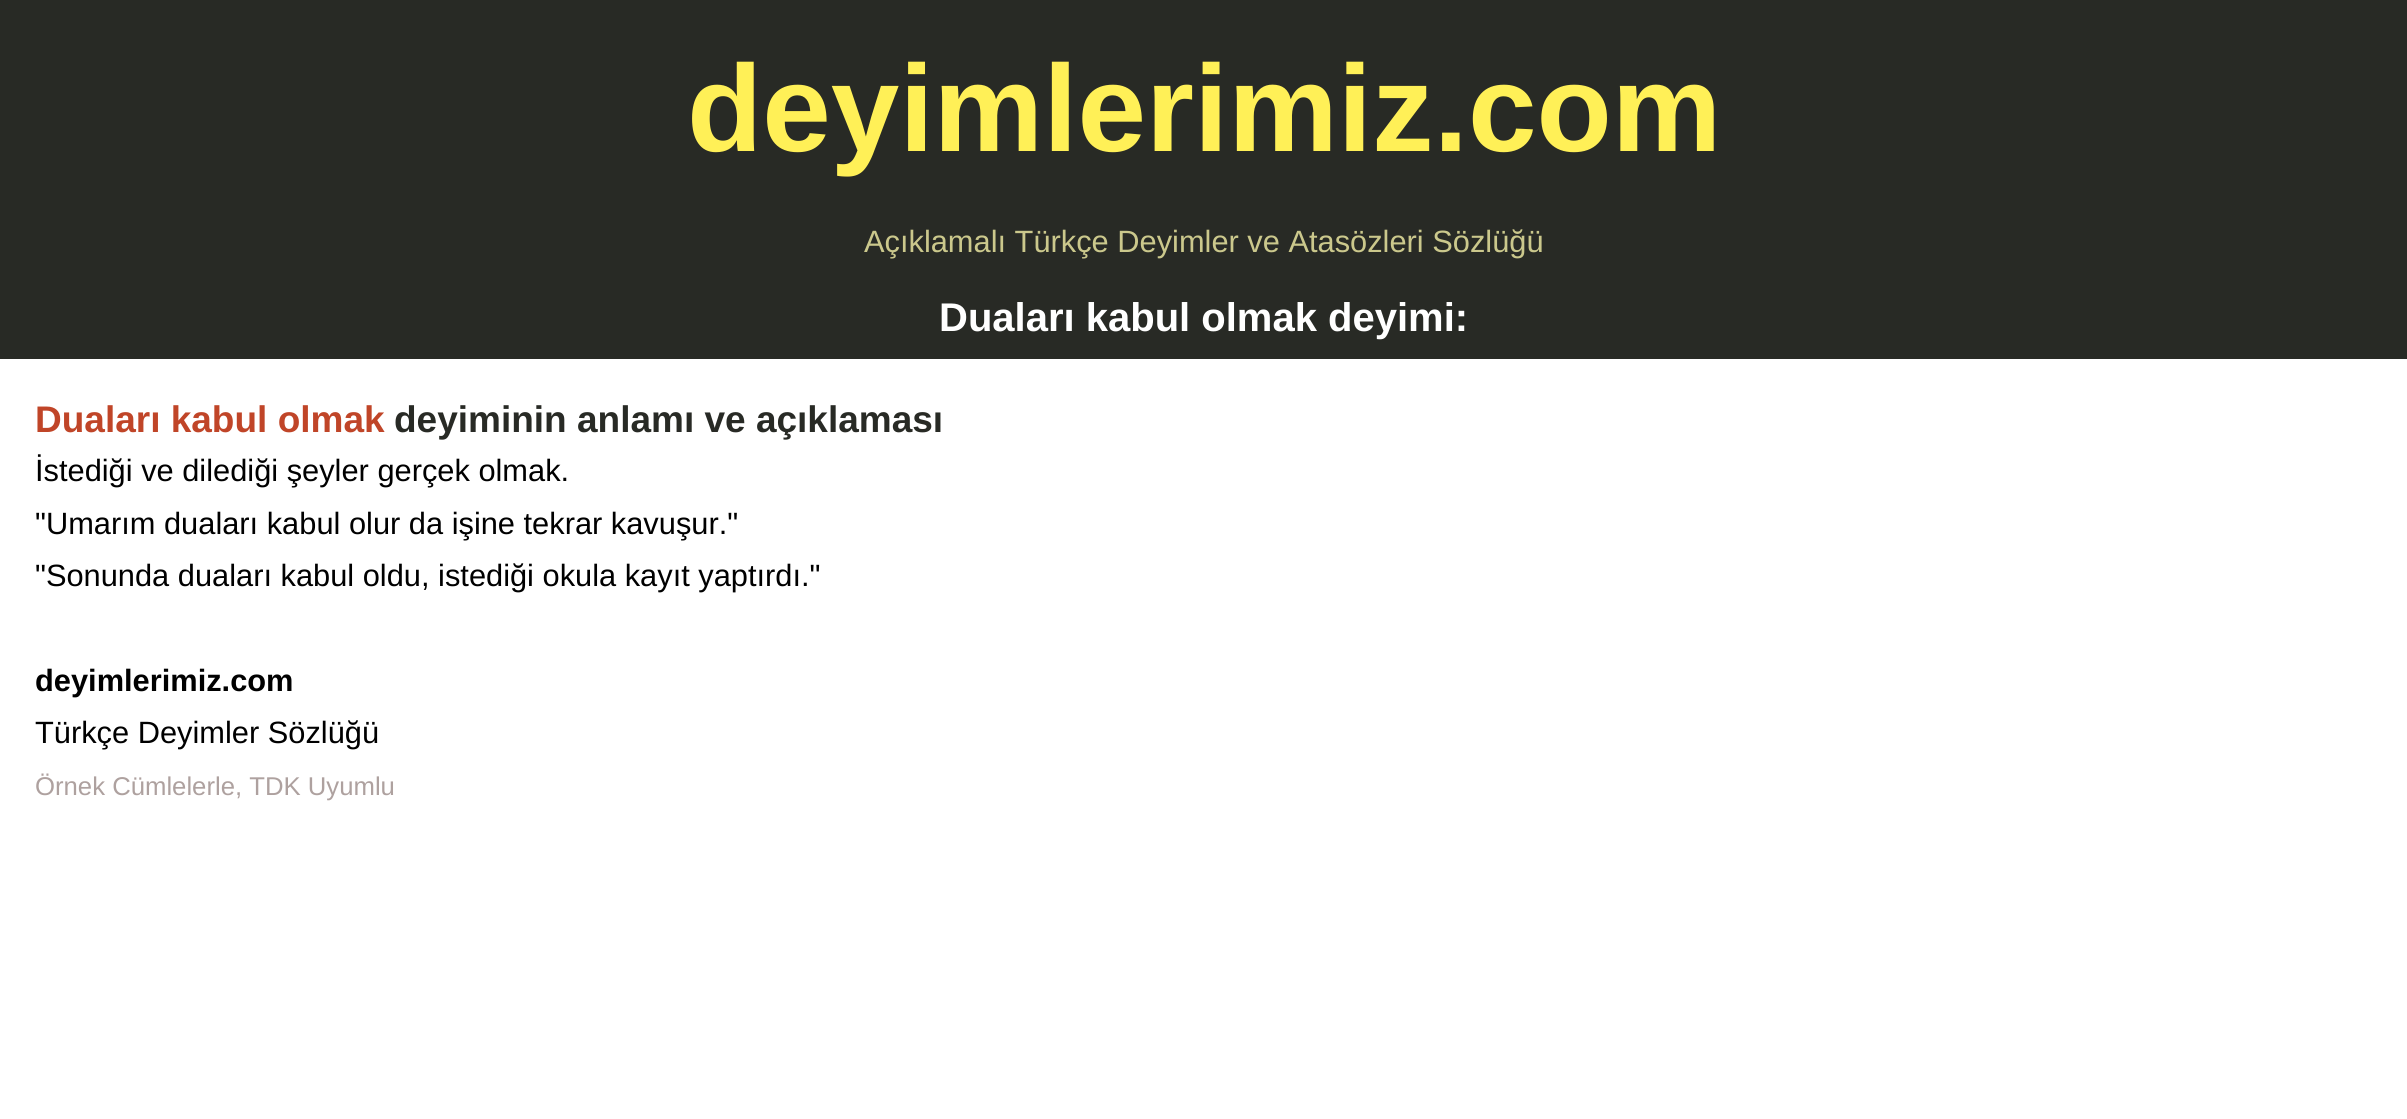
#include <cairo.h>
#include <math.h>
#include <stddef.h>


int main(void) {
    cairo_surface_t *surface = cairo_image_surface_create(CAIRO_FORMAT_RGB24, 2407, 1119);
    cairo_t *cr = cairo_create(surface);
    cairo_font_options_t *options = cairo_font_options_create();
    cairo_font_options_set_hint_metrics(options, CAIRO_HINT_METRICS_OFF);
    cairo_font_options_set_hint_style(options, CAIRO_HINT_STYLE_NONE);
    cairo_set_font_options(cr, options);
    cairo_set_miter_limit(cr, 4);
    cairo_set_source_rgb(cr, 1, 1, 1);
    cairo_paint(cr);
    cairo_set_source_rgb(cr, 0.157, 0.165, 0.145);
    cairo_rectangle(cr, 0, 0, 2407, 359);
    cairo_fill(cr);
    cairo_select_font_face(cr, "Liberation Sans", CAIRO_FONT_SLANT_NORMAL, CAIRO_FONT_WEIGHT_BOLD);
    cairo_set_font_size(cr, 123.25);
    cairo_set_source_rgb(cr, 1, 0.941, 0.341);
    cairo_move_to(cr, 687, 151);
    cairo_show_text(cr, "deyimlerimiz.com");
    cairo_select_font_face(cr, "Liberation Sans", CAIRO_FONT_SLANT_NORMAL, CAIRO_FONT_WEIGHT_NORMAL);
    cairo_set_font_size(cr, 30.8);
    cairo_set_source_rgb(cr, 0.796, 0.784, 0.549);
    cairo_move_to(cr, 864, 252);
    cairo_show_text(cr, "Açıklamalı Türkçe Deyimler ve Atasözleri Sözlüğü");
    cairo_select_font_face(cr, "Liberation Sans", CAIRO_FONT_SLANT_NORMAL, CAIRO_FONT_WEIGHT_BOLD);
    cairo_set_font_size(cr, 40);
    cairo_set_source_rgb(cr, 1, 1, 1);
    cairo_move_to(cr, 939, 331);
    cairo_show_text(cr, "Duaları kabul olmak deyimi:");
    cairo_set_font_size(cr, 37);
    cairo_set_source_rgb(cr, 0.753, 0.271, 0.157);
    cairo_move_to(cr, 35, 432);
    cairo_show_text(cr, "Duaları kabul olmak");
    cairo_set_source_rgb(cr, 0.157, 0.165, 0.145);
    cairo_move_to(cr, 394, 432);
    cairo_show_text(cr, "deyiminin anlamı ve açıklaması");
    cairo_select_font_face(cr, "Liberation Sans", CAIRO_FONT_SLANT_NORMAL, CAIRO_FONT_WEIGHT_NORMAL);
    cairo_set_font_size(cr, 30.8);
    cairo_set_source_rgb(cr, 0, 0, 0);
    cairo_move_to(cr, 35, 481);
    cairo_show_text(cr, "İstediği ve dilediği şeyler gerçek olmak.");
    cairo_move_to(cr, 35, 534);
    cairo_show_text(cr, "\"Umarım duaları kabul olur da işine tekrar kavuşur.\"");
    cairo_move_to(cr, 35, 586);
    cairo_show_text(cr, "\"Sonunda duaları kabul oldu, istediği okula kayıt yaptırdı.\"");
    cairo_select_font_face(cr, "Liberation Sans", CAIRO_FONT_SLANT_NORMAL, CAIRO_FONT_WEIGHT_BOLD);
    cairo_move_to(cr, 35, 691);
    cairo_show_text(cr, "deyimlerimiz.com");
    cairo_select_font_face(cr, "Liberation Sans", CAIRO_FONT_SLANT_NORMAL, CAIRO_FONT_WEIGHT_NORMAL);
    cairo_move_to(cr, 35, 743);
    cairo_show_text(cr, "Türkçe Deyimler Sözlüğü");
    cairo_set_font_size(cr, 25.7);
    cairo_set_source_rgb(cr, 0.682, 0.631, 0.624);
    cairo_move_to(cr, 35, 795);
    cairo_show_text(cr, "Örnek Cümlelerle, TDK Uyumlu");
    cairo_surface_write_to_png(surface, "page.png");
    cairo_font_options_destroy(options);
    cairo_destroy(cr);
    cairo_surface_destroy(surface);
    return 0;
}
